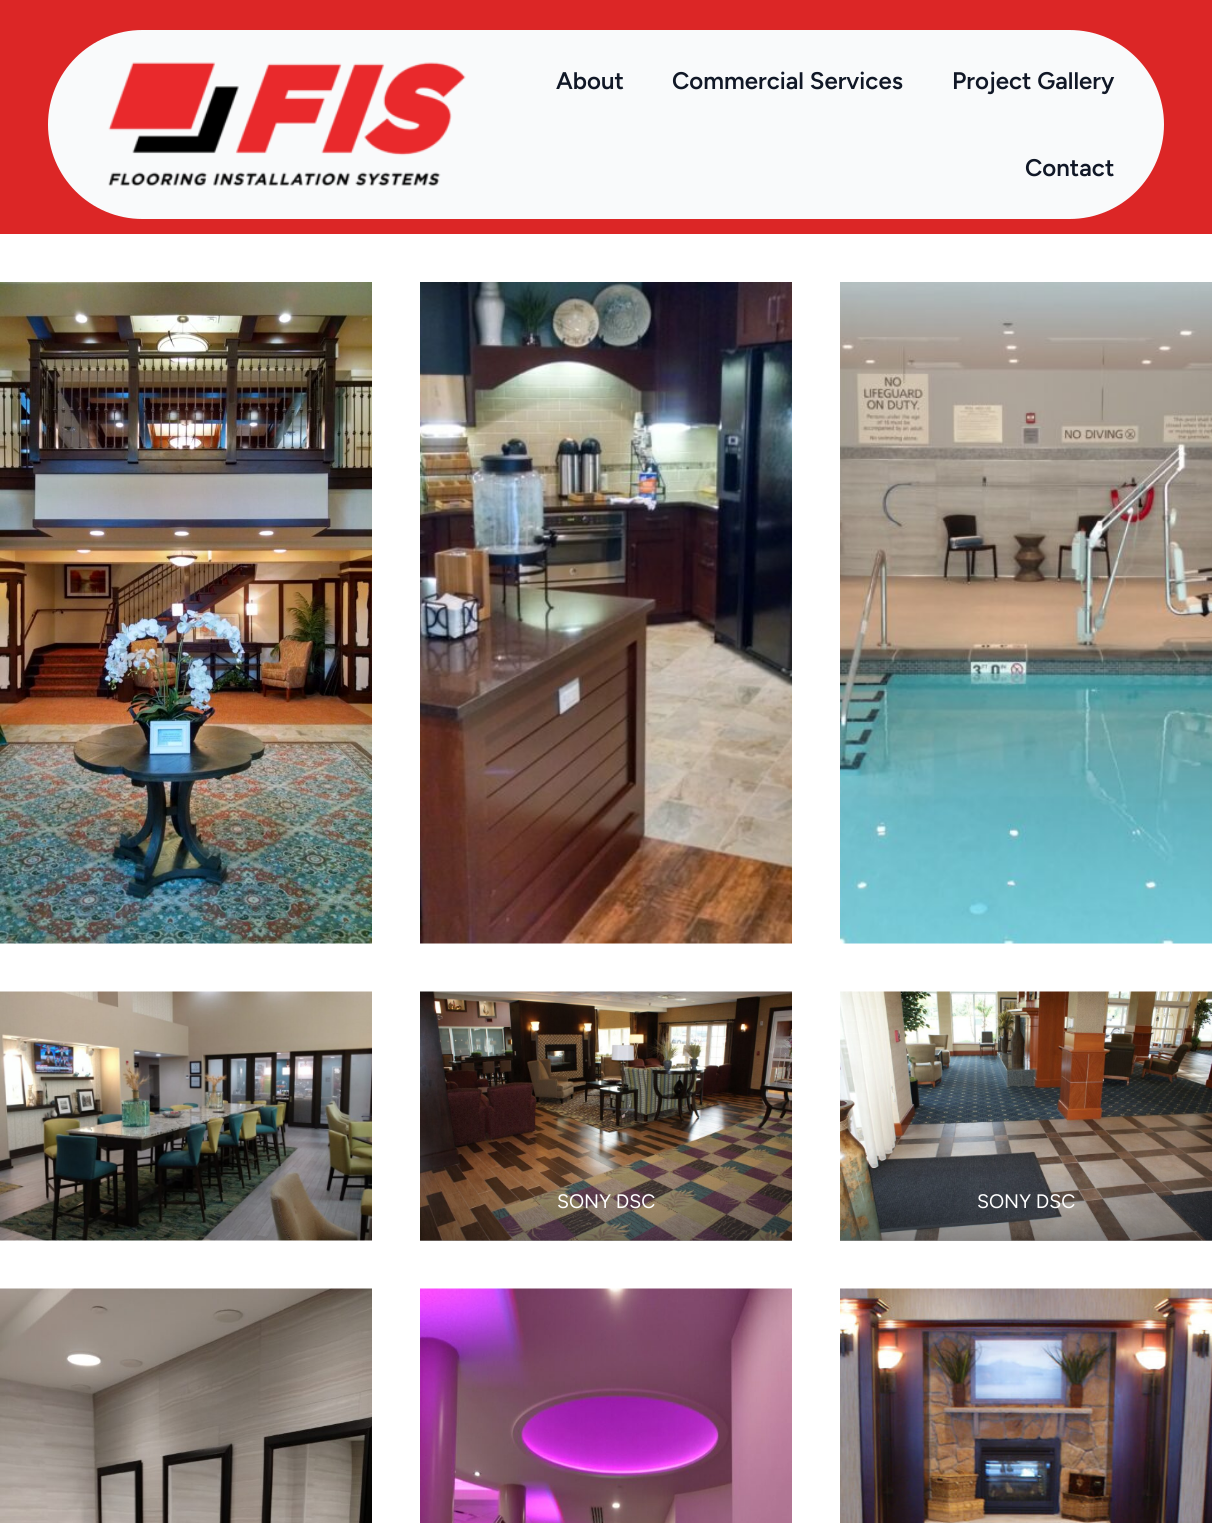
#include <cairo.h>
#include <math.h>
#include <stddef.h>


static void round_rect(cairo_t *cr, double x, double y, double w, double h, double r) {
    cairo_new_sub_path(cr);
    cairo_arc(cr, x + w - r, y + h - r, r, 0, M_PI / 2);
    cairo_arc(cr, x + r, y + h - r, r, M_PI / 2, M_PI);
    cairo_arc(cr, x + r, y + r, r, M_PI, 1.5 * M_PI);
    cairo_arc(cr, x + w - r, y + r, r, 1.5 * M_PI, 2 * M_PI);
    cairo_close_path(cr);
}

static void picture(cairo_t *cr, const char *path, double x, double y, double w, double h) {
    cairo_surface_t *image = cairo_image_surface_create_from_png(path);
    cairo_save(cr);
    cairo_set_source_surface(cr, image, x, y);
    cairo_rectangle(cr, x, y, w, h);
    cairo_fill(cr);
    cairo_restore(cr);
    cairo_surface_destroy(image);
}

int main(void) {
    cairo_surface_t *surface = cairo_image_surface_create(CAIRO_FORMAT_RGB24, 1212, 1523);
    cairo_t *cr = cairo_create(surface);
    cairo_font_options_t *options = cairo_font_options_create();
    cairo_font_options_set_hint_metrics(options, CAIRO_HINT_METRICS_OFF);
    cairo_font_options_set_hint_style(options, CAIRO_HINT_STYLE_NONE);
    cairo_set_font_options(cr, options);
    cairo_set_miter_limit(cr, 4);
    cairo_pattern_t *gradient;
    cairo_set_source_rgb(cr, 1, 1, 1);
    cairo_paint(cr);
    cairo_set_source_rgb(cr, 0.863, 0.149, 0.149);
    cairo_rectangle(cr, 0, 0, 1212, 234);
    cairo_fill(cr);
    cairo_set_source_rgb(cr, 0.976, 0.98, 0.984);
    round_rect(cr, 48, 30, 1116, 189, 94.5);
    cairo_fill(cr);
    picture(cr, "img1.png", 108, 62, 358, 124);
    cairo_select_font_face(cr, "Figtree SemiBold", CAIRO_FONT_SLANT_NORMAL, CAIRO_FONT_WEIGHT_NORMAL);
    cairo_set_font_size(cr, 24);
    cairo_set_source_rgb(cr, 0.067, 0.094, 0.153);
    cairo_move_to(cr, 556, 89);
    cairo_show_text(cr, "About");
    cairo_move_to(cr, 672, 89);
    cairo_show_text(cr, "Commercial Services");
    cairo_move_to(cr, 952, 89);
    cairo_show_text(cr, "Project Gallery");
    cairo_move_to(cr, 1025, 176);
    cairo_show_text(cr, "Contact");
    picture(cr, "img2.png", 0, 282, 372, 662);
    picture(cr, "img3.png", 420, 282, 372, 662);
    picture(cr, "img4.png", 840, 282, 372, 662);
    picture(cr, "img5.png", 0, 991, 372, 250);
    picture(cr, "img6.png", 420, 991, 372, 250);
    gradient = cairo_pattern_create_linear(606, 1241, 606, 1163);
    cairo_pattern_add_color_stop_rgba(gradient, 0, 0, 0, 0, 0.4);
    cairo_pattern_add_color_stop_rgba(gradient, 1, 0, 0, 0, 0);
    cairo_set_source(cr, gradient);
    cairo_pattern_destroy(gradient);
    cairo_rectangle(cr, 420, 1167, 372, 74);
    cairo_fill(cr);
    cairo_select_font_face(cr, "Figtree", CAIRO_FONT_SLANT_NORMAL, CAIRO_FONT_WEIGHT_NORMAL);
    cairo_set_font_size(cr, 19.5);
    cairo_set_source_rgb(cr, 1, 1, 1);
    cairo_move_to(cr, 557, 1208);
    cairo_show_text(cr, "SONY DSC");
    picture(cr, "img7.png", 840, 991, 372, 250);
    gradient = cairo_pattern_create_linear(1026, 1241, 1026, 1163);
    cairo_pattern_add_color_stop_rgba(gradient, 0, 0, 0, 0, 0.4);
    cairo_pattern_add_color_stop_rgba(gradient, 1, 0, 0, 0, 0);
    cairo_set_source(cr, gradient);
    cairo_pattern_destroy(gradient);
    cairo_rectangle(cr, 840, 1167, 372, 74);
    cairo_fill(cr);
    cairo_set_source_rgb(cr, 1, 1, 1);
    cairo_move_to(cr, 977, 1208);
    cairo_show_text(cr, "SONY DSC");
    picture(cr, "img8.png", 0, 1288, 372, 235);
    picture(cr, "img9.png", 420, 1288, 372, 235);
    picture(cr, "img10.png", 840, 1288, 372, 235);
    cairo_surface_write_to_png(surface, "page.png");
    cairo_font_options_destroy(options);
    cairo_destroy(cr);
    cairo_surface_destroy(surface);
    return 0;
}
